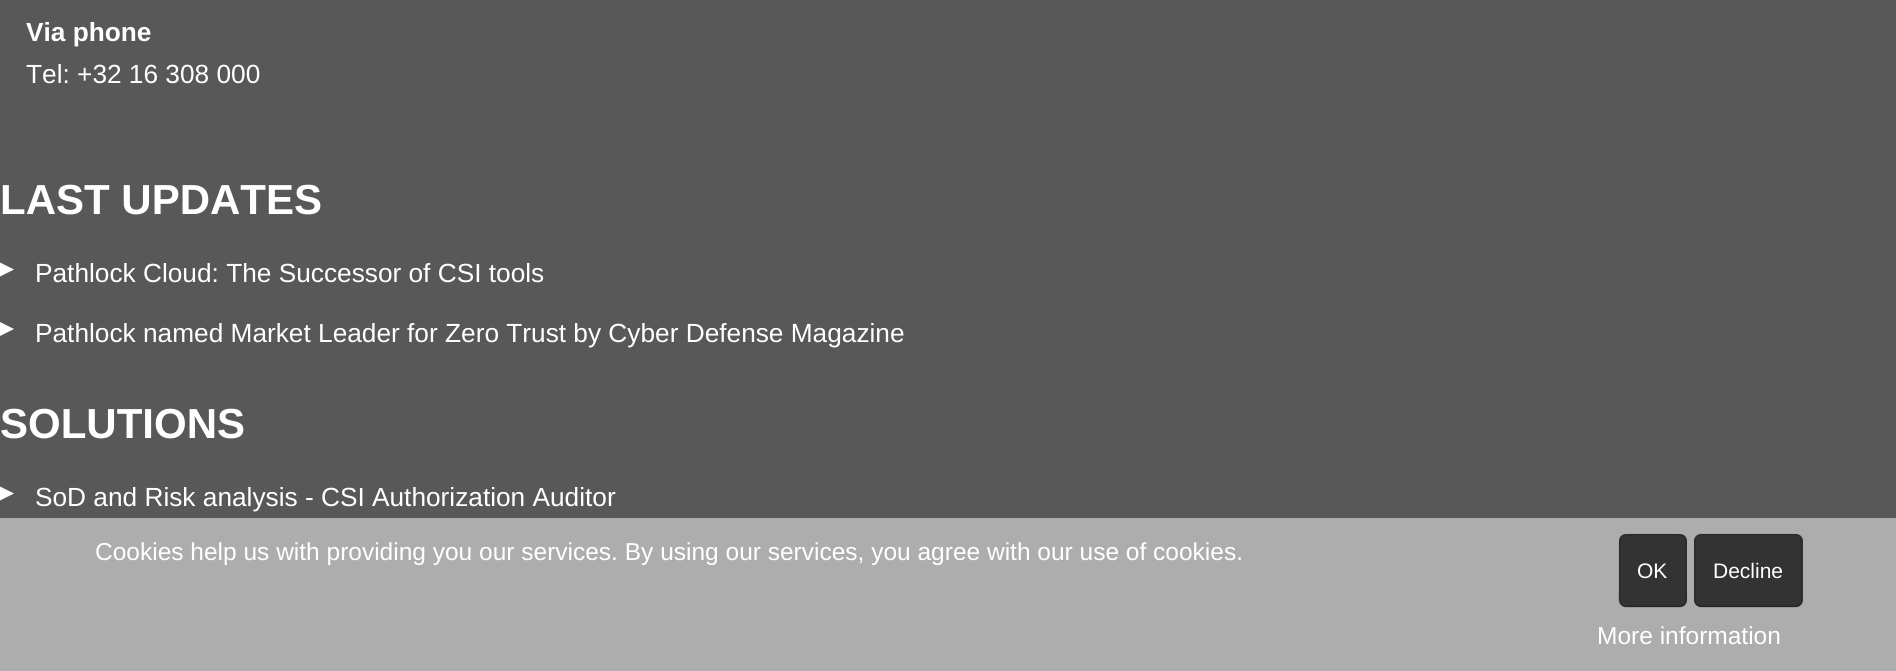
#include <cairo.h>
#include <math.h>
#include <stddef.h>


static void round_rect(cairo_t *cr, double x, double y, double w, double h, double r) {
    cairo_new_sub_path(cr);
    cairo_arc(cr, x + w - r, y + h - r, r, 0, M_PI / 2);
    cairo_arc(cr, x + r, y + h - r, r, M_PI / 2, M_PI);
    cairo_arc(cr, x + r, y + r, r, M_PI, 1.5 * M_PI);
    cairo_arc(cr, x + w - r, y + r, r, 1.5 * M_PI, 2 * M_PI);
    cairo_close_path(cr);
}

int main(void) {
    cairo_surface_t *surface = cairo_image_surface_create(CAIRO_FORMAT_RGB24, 1896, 671);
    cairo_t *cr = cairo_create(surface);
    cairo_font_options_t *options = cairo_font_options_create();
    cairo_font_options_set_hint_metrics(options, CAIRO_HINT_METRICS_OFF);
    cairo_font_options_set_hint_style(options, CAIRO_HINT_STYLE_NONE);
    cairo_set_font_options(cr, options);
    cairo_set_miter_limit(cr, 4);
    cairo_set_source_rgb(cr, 0.345, 0.345, 0.345);
    cairo_paint(cr);
    cairo_select_font_face(cr, "Liberation Sans", CAIRO_FONT_SLANT_NORMAL, CAIRO_FONT_WEIGHT_BOLD);
    cairo_set_font_size(cr, 26.25);
    cairo_set_source_rgb(cr, 1, 1, 1);
    cairo_move_to(cr, 26, 41);
    cairo_show_text(cr, "Via phone");
    cairo_select_font_face(cr, "Liberation Sans", CAIRO_FONT_SLANT_NORMAL, CAIRO_FONT_WEIGHT_NORMAL);
    cairo_move_to(cr, 26, 83);
    cairo_show_text(cr, "Tel: +32 16 308 000");
    cairo_select_font_face(cr, "Liberation Sans", CAIRO_FONT_SLANT_NORMAL, CAIRO_FONT_WEIGHT_BOLD);
    cairo_set_font_size(cr, 42);
    cairo_move_to(cr, 0, 214);
    cairo_show_text(cr, "LAST UPDATES");
    cairo_new_path(cr);
    cairo_move_to(cr, 0, 276.5);
    cairo_line_to(cr, 0, 262.5);
    cairo_line_to(cr, 14, 269.5);
    cairo_close_path(cr);
    cairo_fill(cr);
    cairo_select_font_face(cr, "Liberation Sans", CAIRO_FONT_SLANT_NORMAL, CAIRO_FONT_WEIGHT_NORMAL);
    cairo_set_font_size(cr, 26.25);
    cairo_move_to(cr, 35, 282);
    cairo_show_text(cr, "Pathlock Cloud: The Successor of CSI tools");
    cairo_new_path(cr);
    cairo_move_to(cr, 0, 336);
    cairo_line_to(cr, 0, 322);
    cairo_line_to(cr, 14, 329);
    cairo_close_path(cr);
    cairo_fill(cr);
    cairo_move_to(cr, 35, 342);
    cairo_show_text(cr, "Pathlock named Market Leader for Zero Trust by Cyber Defense Magazine");
    cairo_select_font_face(cr, "Liberation Sans", CAIRO_FONT_SLANT_NORMAL, CAIRO_FONT_WEIGHT_BOLD);
    cairo_set_font_size(cr, 42);
    cairo_move_to(cr, 0, 438);
    cairo_show_text(cr, "SOLUTIONS");
    cairo_new_path(cr);
    cairo_move_to(cr, 0, 500.5);
    cairo_line_to(cr, 0, 486.5);
    cairo_line_to(cr, 14, 493.5);
    cairo_close_path(cr);
    cairo_fill(cr);
    cairo_select_font_face(cr, "Liberation Sans", CAIRO_FONT_SLANT_NORMAL, CAIRO_FONT_WEIGHT_NORMAL);
    cairo_set_font_size(cr, 26.25);
    cairo_move_to(cr, 35, 506);
    cairo_show_text(cr, "SoD and Risk analysis - CSI Authorization Auditor");
    cairo_set_source_rgb(cr, 0.678, 0.678, 0.678);
    cairo_rectangle(cr, 0, 518, 1896, 153);
    cairo_fill(cr);
    cairo_set_font_size(cr, 24.5);
    cairo_set_source_rgb(cr, 1, 1, 1);
    cairo_move_to(cr, 95, 560);
    cairo_show_text(cr, "Cookies help us with providing you our services. By using our services, you agree with our use of cookies.");
    cairo_set_source_rgb(cr, 0.2, 0.2, 0.2);
    round_rect(cr, 1619, 534, 68, 73, 7);
    cairo_fill(cr);
    cairo_new_path(cr);
    cairo_move_to(cr, 1684.5, 604.5);
    cairo_curve_to(cr, 1683, 605.5, 1681.5, 606.5, 1680, 606.5);
    cairo_line_to(cr, 1626, 606.5);
    cairo_curve_to(cr, 1624, 606.5, 1622.5, 605.5, 1621.5, 604.5);
    cairo_set_source_rgba(cr, 0, 0, 0, 0.25);
    cairo_set_line_width(cr, 1.8);
    cairo_stroke(cr);
    cairo_new_path(cr);
    cairo_move_to(cr, 1621.5, 604.5);
    cairo_curve_to(cr, 1618, 601, 1619.5, 593.5, 1619.5, 590.5);
    cairo_line_to(cr, 1619.5, 550.5);
    cairo_curve_to(cr, 1619.5, 534.5, 1619, 534.5, 1635, 534.5);
    cairo_line_to(cr, 1671, 534.5);
    cairo_curve_to(cr, 1687, 534.5, 1686, 534.5, 1686, 550.5);
    cairo_line_to(cr, 1686, 590.5);
    cairo_curve_to(cr, 1686, 593.5, 1687.5, 601, 1684.5, 604.5);
    cairo_set_source_rgba(cr, 0, 0, 0, 0.15);
    cairo_stroke(cr);
    cairo_set_font_size(cr, 21);
    cairo_set_source_rgb(cr, 1, 1, 1);
    cairo_move_to(cr, 1637, 578);
    cairo_show_text(cr, "OK");
    cairo_set_source_rgb(cr, 0.2, 0.2, 0.2);
    round_rect(cr, 1694, 534, 109, 73, 7);
    cairo_fill(cr);
    cairo_new_path(cr);
    cairo_move_to(cr, 1800, 604.5);
    cairo_curve_to(cr, 1798.5, 605.5, 1797, 606.5, 1795.5, 606.5);
    cairo_line_to(cr, 1701, 606.5);
    cairo_curve_to(cr, 1699.5, 606.5, 1698, 605.5, 1696.5, 604.5);
    cairo_set_source_rgba(cr, 0, 0, 0, 0.25);
    cairo_stroke(cr);
    cairo_new_path(cr);
    cairo_move_to(cr, 1696.5, 604.5);
    cairo_curve_to(cr, 1695.5, 603.5, 1695, 602, 1695, 600);
    cairo_line_to(cr, 1695, 541);
    cairo_curve_to(cr, 1695, 539, 1695.5, 537.5, 1696.5, 536.5);
    cairo_curve_to(cr, 1698, 535.5, 1699.5, 534.5, 1701, 534.5);
    cairo_line_to(cr, 1795.5, 534.5);
    cairo_curve_to(cr, 1797, 534.5, 1798.5, 535.5, 1800, 536.5);
    cairo_curve_to(cr, 1801, 537.5, 1801.5, 539, 1801.5, 541);
    cairo_line_to(cr, 1801.5, 600);
    cairo_curve_to(cr, 1801.5, 602, 1801, 603.5, 1800, 604.5);
    cairo_set_source_rgba(cr, 0, 0, 0, 0.15);
    cairo_stroke(cr);
    cairo_set_source_rgb(cr, 1, 1, 1);
    cairo_move_to(cr, 1713, 578);
    cairo_show_text(cr, "Decline");
    cairo_set_font_size(cr, 24.5);
    cairo_move_to(cr, 1597, 644);
    cairo_show_text(cr, "More information");
    cairo_surface_write_to_png(surface, "page.png");
    cairo_font_options_destroy(options);
    cairo_destroy(cr);
    cairo_surface_destroy(surface);
    return 0;
}
